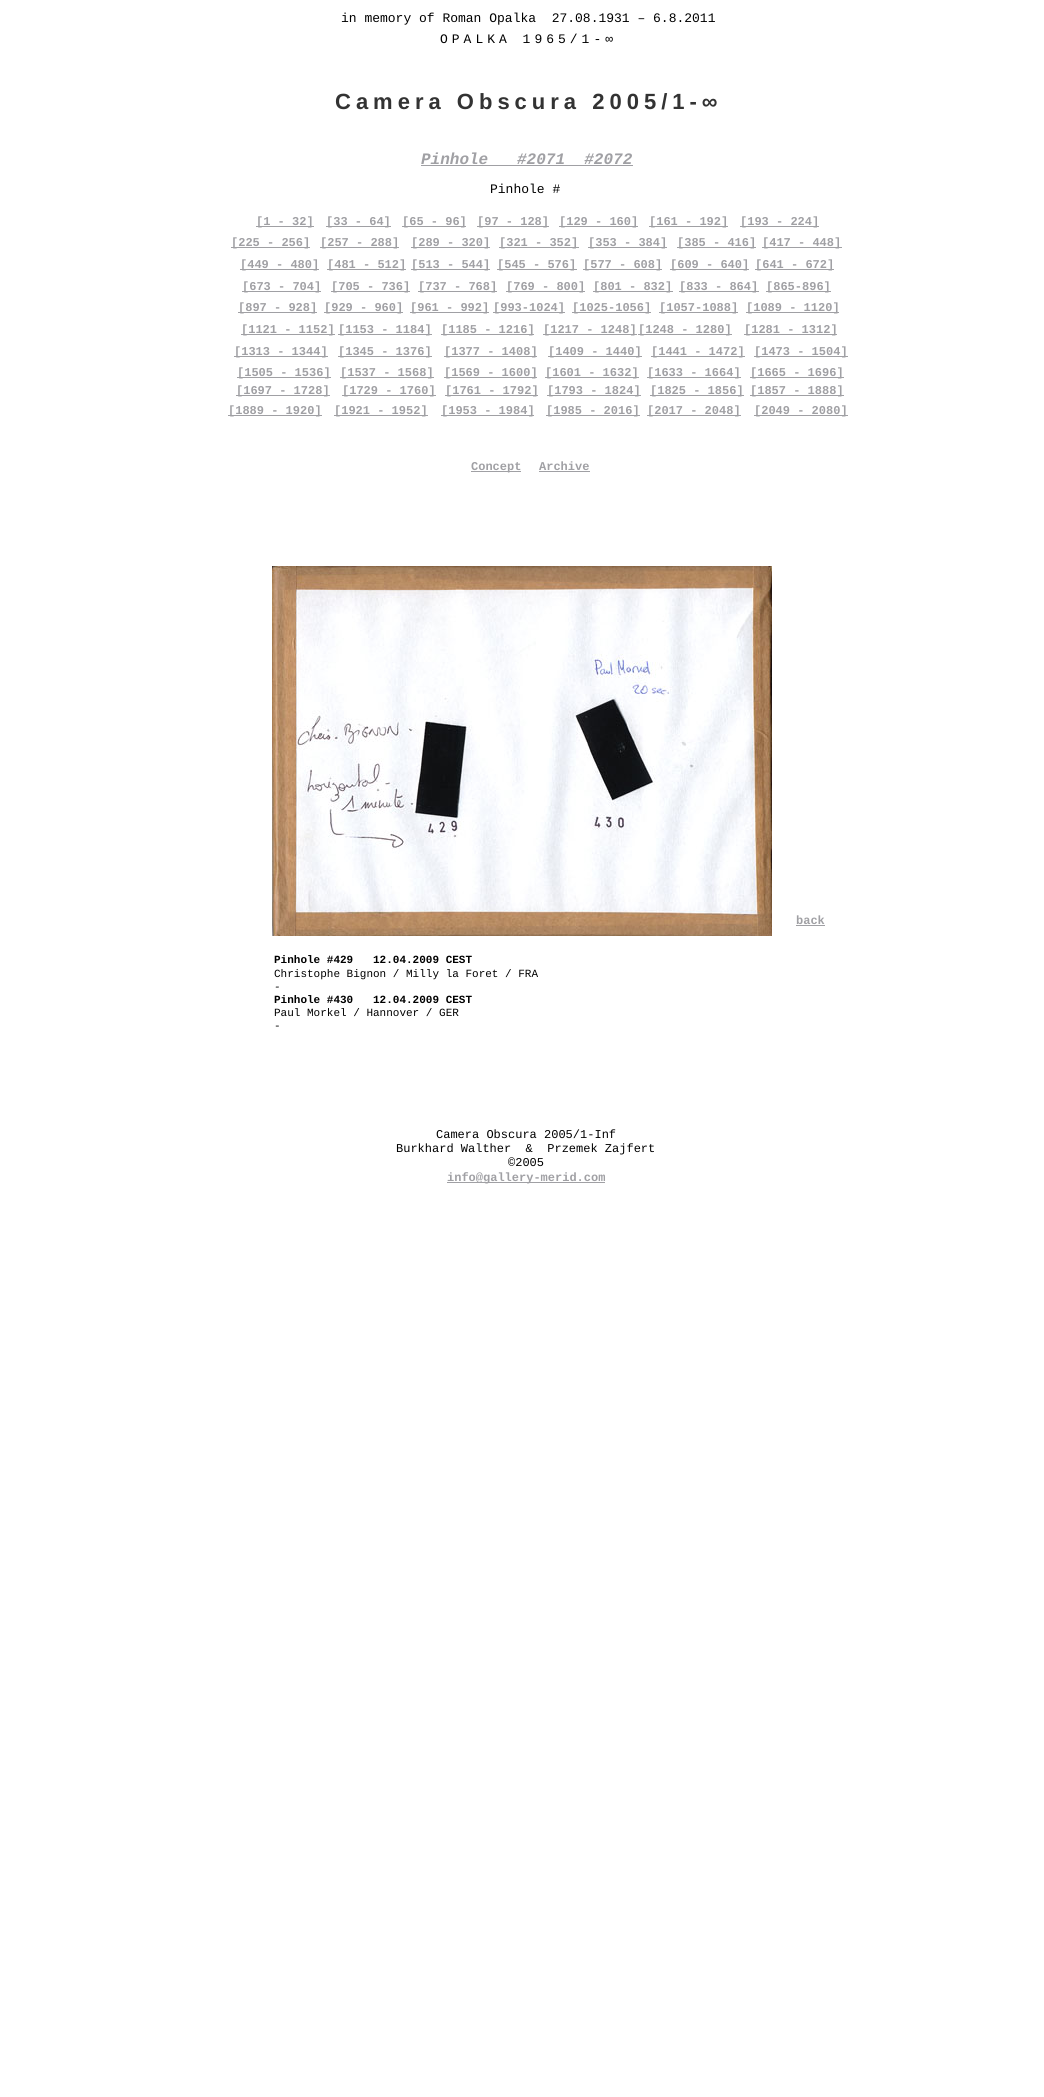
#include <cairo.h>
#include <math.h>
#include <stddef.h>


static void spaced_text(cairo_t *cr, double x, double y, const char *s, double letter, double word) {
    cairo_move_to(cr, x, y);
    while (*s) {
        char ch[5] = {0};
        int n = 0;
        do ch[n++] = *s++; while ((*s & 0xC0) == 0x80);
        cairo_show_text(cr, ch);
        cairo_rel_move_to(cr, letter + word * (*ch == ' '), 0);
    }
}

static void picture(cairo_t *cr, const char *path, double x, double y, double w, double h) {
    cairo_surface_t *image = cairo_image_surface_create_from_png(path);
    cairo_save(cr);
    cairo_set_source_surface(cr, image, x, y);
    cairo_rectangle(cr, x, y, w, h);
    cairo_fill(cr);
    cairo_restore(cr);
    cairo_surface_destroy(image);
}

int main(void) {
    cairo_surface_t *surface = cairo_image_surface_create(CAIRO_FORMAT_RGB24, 1044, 2097);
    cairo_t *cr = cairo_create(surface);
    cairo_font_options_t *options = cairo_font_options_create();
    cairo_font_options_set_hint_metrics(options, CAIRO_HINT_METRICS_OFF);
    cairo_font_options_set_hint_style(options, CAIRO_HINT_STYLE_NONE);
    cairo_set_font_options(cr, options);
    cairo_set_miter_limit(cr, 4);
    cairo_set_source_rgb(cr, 1, 1, 1);
    cairo_paint(cr);
    cairo_select_font_face(cr, "Liberation Mono", CAIRO_FONT_SLANT_NORMAL, CAIRO_FONT_WEIGHT_NORMAL);
    cairo_set_font_size(cr, 13);
    cairo_set_source_rgb(cr, 0, 0, 0);
    cairo_move_to(cr, 341, 22);
    cairo_show_text(cr, "in memory of Roman Opalka  27.08.1931 – 6.8.2011");
    spaced_text(cr, 440, 43, "OPALKA 1965/1-∞", 4, 0);
    cairo_select_font_face(cr, "Liberation Sans", CAIRO_FONT_SLANT_NORMAL, CAIRO_FONT_WEIGHT_BOLD);
    cairo_set_font_size(cr, 22);
    cairo_set_source_rgb(cr, 0.2, 0.2, 0.2);
    spaced_text(cr, 335, 109, "Camera Obscura 2005/1-∞", 5, 0);
    cairo_select_font_face(cr, "Liberation Mono", CAIRO_FONT_SLANT_ITALIC, CAIRO_FONT_WEIGHT_BOLD);
    cairo_set_font_size(cr, 16);
    cairo_set_source_rgb(cr, 0.627, 0.627, 0.643);
    cairo_move_to(cr, 421, 164);
    cairo_show_text(cr, "Pinhole   #2071  #2072");
    cairo_rectangle(cr, 421, 165, 212, 1);
    cairo_fill(cr);
    cairo_select_font_face(cr, "Liberation Mono", CAIRO_FONT_SLANT_NORMAL, CAIRO_FONT_WEIGHT_NORMAL);
    cairo_set_font_size(cr, 13);
    cairo_set_source_rgb(cr, 0, 0, 0);
    cairo_move_to(cr, 490, 193);
    cairo_show_text(cr, "Pinhole #");
    cairo_set_source_rgb(cr, 0.627, 0.627, 0.643);
    cairo_rectangle(cr, 256, 226, 58, 1);
    cairo_fill(cr);
    cairo_select_font_face(cr, "Liberation Mono", CAIRO_FONT_SLANT_NORMAL, CAIRO_FONT_WEIGHT_BOLD);
    cairo_set_font_size(cr, 12);
    cairo_move_to(cr, 256, 225);
    cairo_show_text(cr, "[1 - 32]");
    cairo_rectangle(cr, 326, 226, 65, 1);
    cairo_fill(cr);
    cairo_move_to(cr, 326, 225);
    cairo_show_text(cr, "[33 - 64]");
    cairo_rectangle(cr, 402, 226, 64, 1);
    cairo_fill(cr);
    cairo_move_to(cr, 402, 225);
    cairo_show_text(cr, "[65 - 96]");
    cairo_rectangle(cr, 477, 226, 72, 1);
    cairo_fill(cr);
    cairo_move_to(cr, 477, 225);
    cairo_show_text(cr, "[97 - 128]");
    cairo_rectangle(cr, 559, 226, 79, 1);
    cairo_fill(cr);
    cairo_move_to(cr, 559, 225);
    cairo_show_text(cr, "[129 - 160]");
    cairo_rectangle(cr, 649, 226, 79, 1);
    cairo_fill(cr);
    cairo_move_to(cr, 649, 225);
    cairo_show_text(cr, "[161 - 192]");
    cairo_rectangle(cr, 740, 226, 79, 1);
    cairo_fill(cr);
    cairo_move_to(cr, 740, 225);
    cairo_show_text(cr, "[193 - 224]");
    cairo_rectangle(cr, 231, 247, 79, 1);
    cairo_fill(cr);
    cairo_move_to(cr, 231, 246);
    cairo_show_text(cr, "[225 - 256]");
    cairo_rectangle(cr, 320, 247, 79, 1);
    cairo_fill(cr);
    cairo_move_to(cr, 320, 246);
    cairo_show_text(cr, "[257 - 288]");
    cairo_rectangle(cr, 411, 247, 79, 1);
    cairo_fill(cr);
    cairo_move_to(cr, 411, 246);
    cairo_show_text(cr, "[289 - 320]");
    cairo_rectangle(cr, 499, 247, 80, 1);
    cairo_fill(cr);
    cairo_move_to(cr, 499, 246);
    cairo_show_text(cr, "[321 - 352]");
    cairo_rectangle(cr, 588, 247, 79, 1);
    cairo_fill(cr);
    cairo_move_to(cr, 588, 246);
    cairo_show_text(cr, "[353 - 384]");
    cairo_rectangle(cr, 677, 247, 79, 1);
    cairo_fill(cr);
    cairo_move_to(cr, 677, 246);
    cairo_show_text(cr, "[385 - 416]");
    cairo_rectangle(cr, 762, 247, 80, 1);
    cairo_fill(cr);
    cairo_move_to(cr, 762, 246);
    cairo_show_text(cr, "[417 - 448]");
    cairo_rectangle(cr, 240, 269, 79, 1);
    cairo_fill(cr);
    cairo_move_to(cr, 240, 268);
    cairo_show_text(cr, "[449 - 480]");
    cairo_rectangle(cr, 242, 291, 79, 1);
    cairo_fill(cr);
    cairo_move_to(cr, 242, 290);
    cairo_show_text(cr, "[673 - 704]");
    cairo_rectangle(cr, 327, 269, 79, 1);
    cairo_fill(cr);
    cairo_move_to(cr, 327, 268);
    cairo_show_text(cr, "[481 - 512]");
    cairo_rectangle(cr, 331, 291, 79, 1);
    cairo_fill(cr);
    cairo_move_to(cr, 331, 290);
    cairo_show_text(cr, "[705 - 736]");
    cairo_rectangle(cr, 411, 269, 79, 1);
    cairo_fill(cr);
    cairo_move_to(cr, 411, 268);
    cairo_show_text(cr, "[513 - 544]");
    cairo_rectangle(cr, 497, 269, 80, 1);
    cairo_fill(cr);
    cairo_move_to(cr, 497, 268);
    cairo_show_text(cr, "[545 - 576]");
    cairo_rectangle(cr, 583, 269, 79, 1);
    cairo_fill(cr);
    cairo_move_to(cr, 583, 268);
    cairo_show_text(cr, "[577 - 608]");
    cairo_rectangle(cr, 670, 269, 79, 1);
    cairo_fill(cr);
    cairo_move_to(cr, 670, 268);
    cairo_show_text(cr, "[609 - 640]");
    cairo_rectangle(cr, 755, 269, 79, 1);
    cairo_fill(cr);
    cairo_move_to(cr, 755, 268);
    cairo_show_text(cr, "[641 - 672]");
    cairo_rectangle(cr, 418, 291, 79, 1);
    cairo_fill(cr);
    cairo_move_to(cr, 418, 290);
    cairo_show_text(cr, "[737 - 768]");
    cairo_rectangle(cr, 506, 291, 79, 1);
    cairo_fill(cr);
    cairo_move_to(cr, 506, 290);
    cairo_show_text(cr, "[769 - 800]");
    cairo_rectangle(cr, 593, 291, 80, 1);
    cairo_fill(cr);
    cairo_move_to(cr, 593, 290);
    cairo_show_text(cr, "[801 - 832]");
    cairo_rectangle(cr, 679, 291, 80, 1);
    cairo_fill(cr);
    cairo_move_to(cr, 679, 290);
    cairo_show_text(cr, "[833 - 864]");
    cairo_rectangle(cr, 766, 291, 65, 1);
    cairo_fill(cr);
    cairo_move_to(cr, 766, 290);
    cairo_show_text(cr, "[865-896]");
    cairo_rectangle(cr, 238, 312, 79, 1);
    cairo_fill(cr);
    cairo_move_to(cr, 238, 311);
    cairo_show_text(cr, "[897 - 928]");
    cairo_rectangle(cr, 324, 312, 79, 1);
    cairo_fill(cr);
    cairo_move_to(cr, 324, 311);
    cairo_show_text(cr, "[929 - 960]");
    cairo_rectangle(cr, 410, 312, 79, 1);
    cairo_fill(cr);
    cairo_move_to(cr, 410, 311);
    cairo_show_text(cr, "[961 - 992]");
    cairo_rectangle(cr, 493, 312, 72, 1);
    cairo_fill(cr);
    cairo_move_to(cr, 493, 311);
    cairo_show_text(cr, "[993-1024]");
    cairo_rectangle(cr, 572, 312, 79, 1);
    cairo_fill(cr);
    cairo_move_to(cr, 572, 311);
    cairo_show_text(cr, "[1025-1056]");
    cairo_rectangle(cr, 659, 312, 79, 1);
    cairo_fill(cr);
    cairo_move_to(cr, 659, 311);
    cairo_show_text(cr, "[1057-1088]");
    cairo_rectangle(cr, 746, 312, 93, 1);
    cairo_fill(cr);
    cairo_move_to(cr, 746, 311);
    cairo_show_text(cr, "[1089 - 1120]");
    cairo_rectangle(cr, 241, 334, 94, 1);
    cairo_fill(cr);
    cairo_move_to(cr, 241, 333);
    cairo_show_text(cr, "[1121 - 1152]");
    cairo_rectangle(cr, 338, 334, 94, 1);
    cairo_fill(cr);
    cairo_move_to(cr, 338, 333);
    cairo_show_text(cr, "[1153 - 1184]");
    cairo_rectangle(cr, 234, 356, 94, 1);
    cairo_fill(cr);
    cairo_move_to(cr, 234, 355);
    cairo_show_text(cr, "[1313 - 1344]");
    cairo_rectangle(cr, 237, 377, 94, 1);
    cairo_fill(cr);
    cairo_move_to(cr, 237, 376);
    cairo_show_text(cr, "[1505 - 1536]");
    cairo_rectangle(cr, 236, 395, 94, 1);
    cairo_fill(cr);
    cairo_move_to(cr, 236, 394);
    cairo_show_text(cr, "[1697 - 1728]");
    cairo_rectangle(cr, 228, 415, 94, 1);
    cairo_fill(cr);
    cairo_move_to(cr, 228, 414);
    cairo_show_text(cr, "[1889 - 1920]");
    cairo_rectangle(cr, 338, 356, 94, 1);
    cairo_fill(cr);
    cairo_move_to(cr, 338, 355);
    cairo_show_text(cr, "[1345 - 1376]");
    cairo_rectangle(cr, 340, 377, 94, 1);
    cairo_fill(cr);
    cairo_move_to(cr, 340, 376);
    cairo_show_text(cr, "[1537 - 1568]");
    cairo_rectangle(cr, 342, 395, 94, 1);
    cairo_fill(cr);
    cairo_move_to(cr, 342, 394);
    cairo_show_text(cr, "[1729 - 1760]");
    cairo_rectangle(cr, 334, 415, 94, 1);
    cairo_fill(cr);
    cairo_move_to(cr, 334, 414);
    cairo_show_text(cr, "[1921 - 1952]");
    cairo_rectangle(cr, 441, 334, 93, 1);
    cairo_fill(cr);
    cairo_move_to(cr, 441, 333);
    cairo_show_text(cr, "[1185 - 1216]");
    cairo_rectangle(cr, 444, 356, 93, 1);
    cairo_fill(cr);
    cairo_move_to(cr, 444, 355);
    cairo_show_text(cr, "[1377 - 1408]");
    cairo_rectangle(cr, 444, 377, 93, 1);
    cairo_fill(cr);
    cairo_move_to(cr, 444, 376);
    cairo_show_text(cr, "[1569 - 1600]");
    cairo_rectangle(cr, 445, 395, 93, 1);
    cairo_fill(cr);
    cairo_move_to(cr, 445, 394);
    cairo_show_text(cr, "[1761 - 1792]");
    cairo_rectangle(cr, 441, 415, 93, 1);
    cairo_fill(cr);
    cairo_move_to(cr, 441, 414);
    cairo_show_text(cr, "[1953 - 1984]");
    cairo_rectangle(cr, 471, 471, 50, 1);
    cairo_fill(cr);
    cairo_move_to(cr, 471, 470);
    cairo_show_text(cr, "Concept");
    cairo_rectangle(cr, 543, 334, 94, 1);
    cairo_fill(cr);
    cairo_move_to(cr, 543, 333);
    cairo_show_text(cr, "[1217 - 1248]");
    cairo_rectangle(cr, 638, 334, 94, 1);
    cairo_fill(cr);
    cairo_move_to(cr, 638, 333);
    cairo_show_text(cr, "[1248 - 1280]");
    cairo_rectangle(cr, 744, 334, 93, 1);
    cairo_fill(cr);
    cairo_move_to(cr, 744, 333);
    cairo_show_text(cr, "[1281 - 1312]");
    cairo_rectangle(cr, 548, 356, 94, 1);
    cairo_fill(cr);
    cairo_move_to(cr, 548, 355);
    cairo_show_text(cr, "[1409 - 1440]");
    cairo_rectangle(cr, 545, 377, 94, 1);
    cairo_fill(cr);
    cairo_move_to(cr, 545, 376);
    cairo_show_text(cr, "[1601 - 1632]");
    cairo_rectangle(cr, 547, 395, 94, 1);
    cairo_fill(cr);
    cairo_move_to(cr, 547, 394);
    cairo_show_text(cr, "[1793 - 1824]");
    cairo_rectangle(cr, 546, 415, 94, 1);
    cairo_fill(cr);
    cairo_move_to(cr, 546, 414);
    cairo_show_text(cr, "[1985 - 2016]");
    cairo_move_to(cr, 539, 470);
    cairo_show_text(cr, "Archive");
    cairo_rectangle(cr, 539, 471, 51, 1);
    cairo_fill(cr);
    cairo_rectangle(cr, 651, 356, 94, 1);
    cairo_fill(cr);
    cairo_move_to(cr, 651, 355);
    cairo_show_text(cr, "[1441 - 1472]");
    cairo_rectangle(cr, 647, 377, 94, 1);
    cairo_fill(cr);
    cairo_move_to(cr, 647, 376);
    cairo_show_text(cr, "[1633 - 1664]");
    cairo_rectangle(cr, 650, 395, 94, 1);
    cairo_fill(cr);
    cairo_move_to(cr, 650, 394);
    cairo_show_text(cr, "[1825 - 1856]");
    cairo_rectangle(cr, 647, 415, 94, 1);
    cairo_fill(cr);
    cairo_move_to(cr, 647, 414);
    cairo_show_text(cr, "[2017 - 2048]");
    cairo_rectangle(cr, 754, 356, 94, 1);
    cairo_fill(cr);
    cairo_move_to(cr, 754, 355);
    cairo_show_text(cr, "[1473 - 1504]");
    cairo_rectangle(cr, 750, 377, 94, 1);
    cairo_fill(cr);
    cairo_move_to(cr, 750, 376);
    cairo_show_text(cr, "[1665 - 1696]");
    cairo_rectangle(cr, 750, 395, 94, 1);
    cairo_fill(cr);
    cairo_move_to(cr, 750, 394);
    cairo_show_text(cr, "[1857 - 1888]");
    cairo_rectangle(cr, 754, 415, 94, 1);
    cairo_fill(cr);
    cairo_move_to(cr, 754, 414);
    cairo_show_text(cr, "[2049 - 2080]");
    picture(cr, "img1.png", 272, 566, 500, 370);
    cairo_move_to(cr, 796, 924);
    cairo_show_text(cr, "back");
    cairo_rectangle(cr, 796, 925, 29, 1);
    cairo_fill(cr);
    cairo_set_font_size(cr, 11);
    cairo_set_source_rgb(cr, 0, 0, 0);
    cairo_move_to(cr, 274, 963);
    cairo_show_text(cr, "Pinhole #429   12.04.2009 CEST");
    cairo_select_font_face(cr, "Liberation Mono", CAIRO_FONT_SLANT_NORMAL, CAIRO_FONT_WEIGHT_NORMAL);
    cairo_move_to(cr, 274, 977);
    cairo_show_text(cr, "Christophe Bignon / Milly la Foret / FRA");
    cairo_select_font_face(cr, "Liberation Mono", CAIRO_FONT_SLANT_ITALIC, CAIRO_FONT_WEIGHT_NORMAL);
    cairo_move_to(cr, 274, 990);
    cairo_show_text(cr, "-");
    cairo_select_font_face(cr, "Liberation Mono", CAIRO_FONT_SLANT_NORMAL, CAIRO_FONT_WEIGHT_BOLD);
    cairo_move_to(cr, 274, 1003);
    cairo_show_text(cr, "Pinhole #430   12.04.2009 CEST");
    cairo_select_font_face(cr, "Liberation Mono", CAIRO_FONT_SLANT_NORMAL, CAIRO_FONT_WEIGHT_NORMAL);
    cairo_move_to(cr, 274, 1016);
    cairo_show_text(cr, "Paul Morkel / Hannover / GER");
    cairo_move_to(cr, 274, 1029);
    cairo_show_text(cr, "-");
    cairo_set_font_size(cr, 12);
    cairo_move_to(cr, 436, 1138);
    cairo_show_text(cr, "Camera Obscura 2005/1-Inf");
    cairo_move_to(cr, 396, 1152);
    cairo_show_text(cr, "Burkhard Walther  &  Przemek Zajfert");
    cairo_move_to(cr, 508, 1166);
    cairo_show_text(cr, "©2005");
    cairo_set_source_rgb(cr, 0.627, 0.627, 0.643);
    cairo_rectangle(cr, 447, 1182, 158, 1);
    cairo_fill(cr);
    cairo_select_font_face(cr, "Liberation Mono", CAIRO_FONT_SLANT_NORMAL, CAIRO_FONT_WEIGHT_BOLD);
    cairo_move_to(cr, 447, 1181);
    cairo_show_text(cr, "info@gallery-merid.com");
    cairo_surface_write_to_png(surface, "page.png");
    cairo_font_options_destroy(options);
    cairo_destroy(cr);
    cairo_surface_destroy(surface);
    return 0;
}
